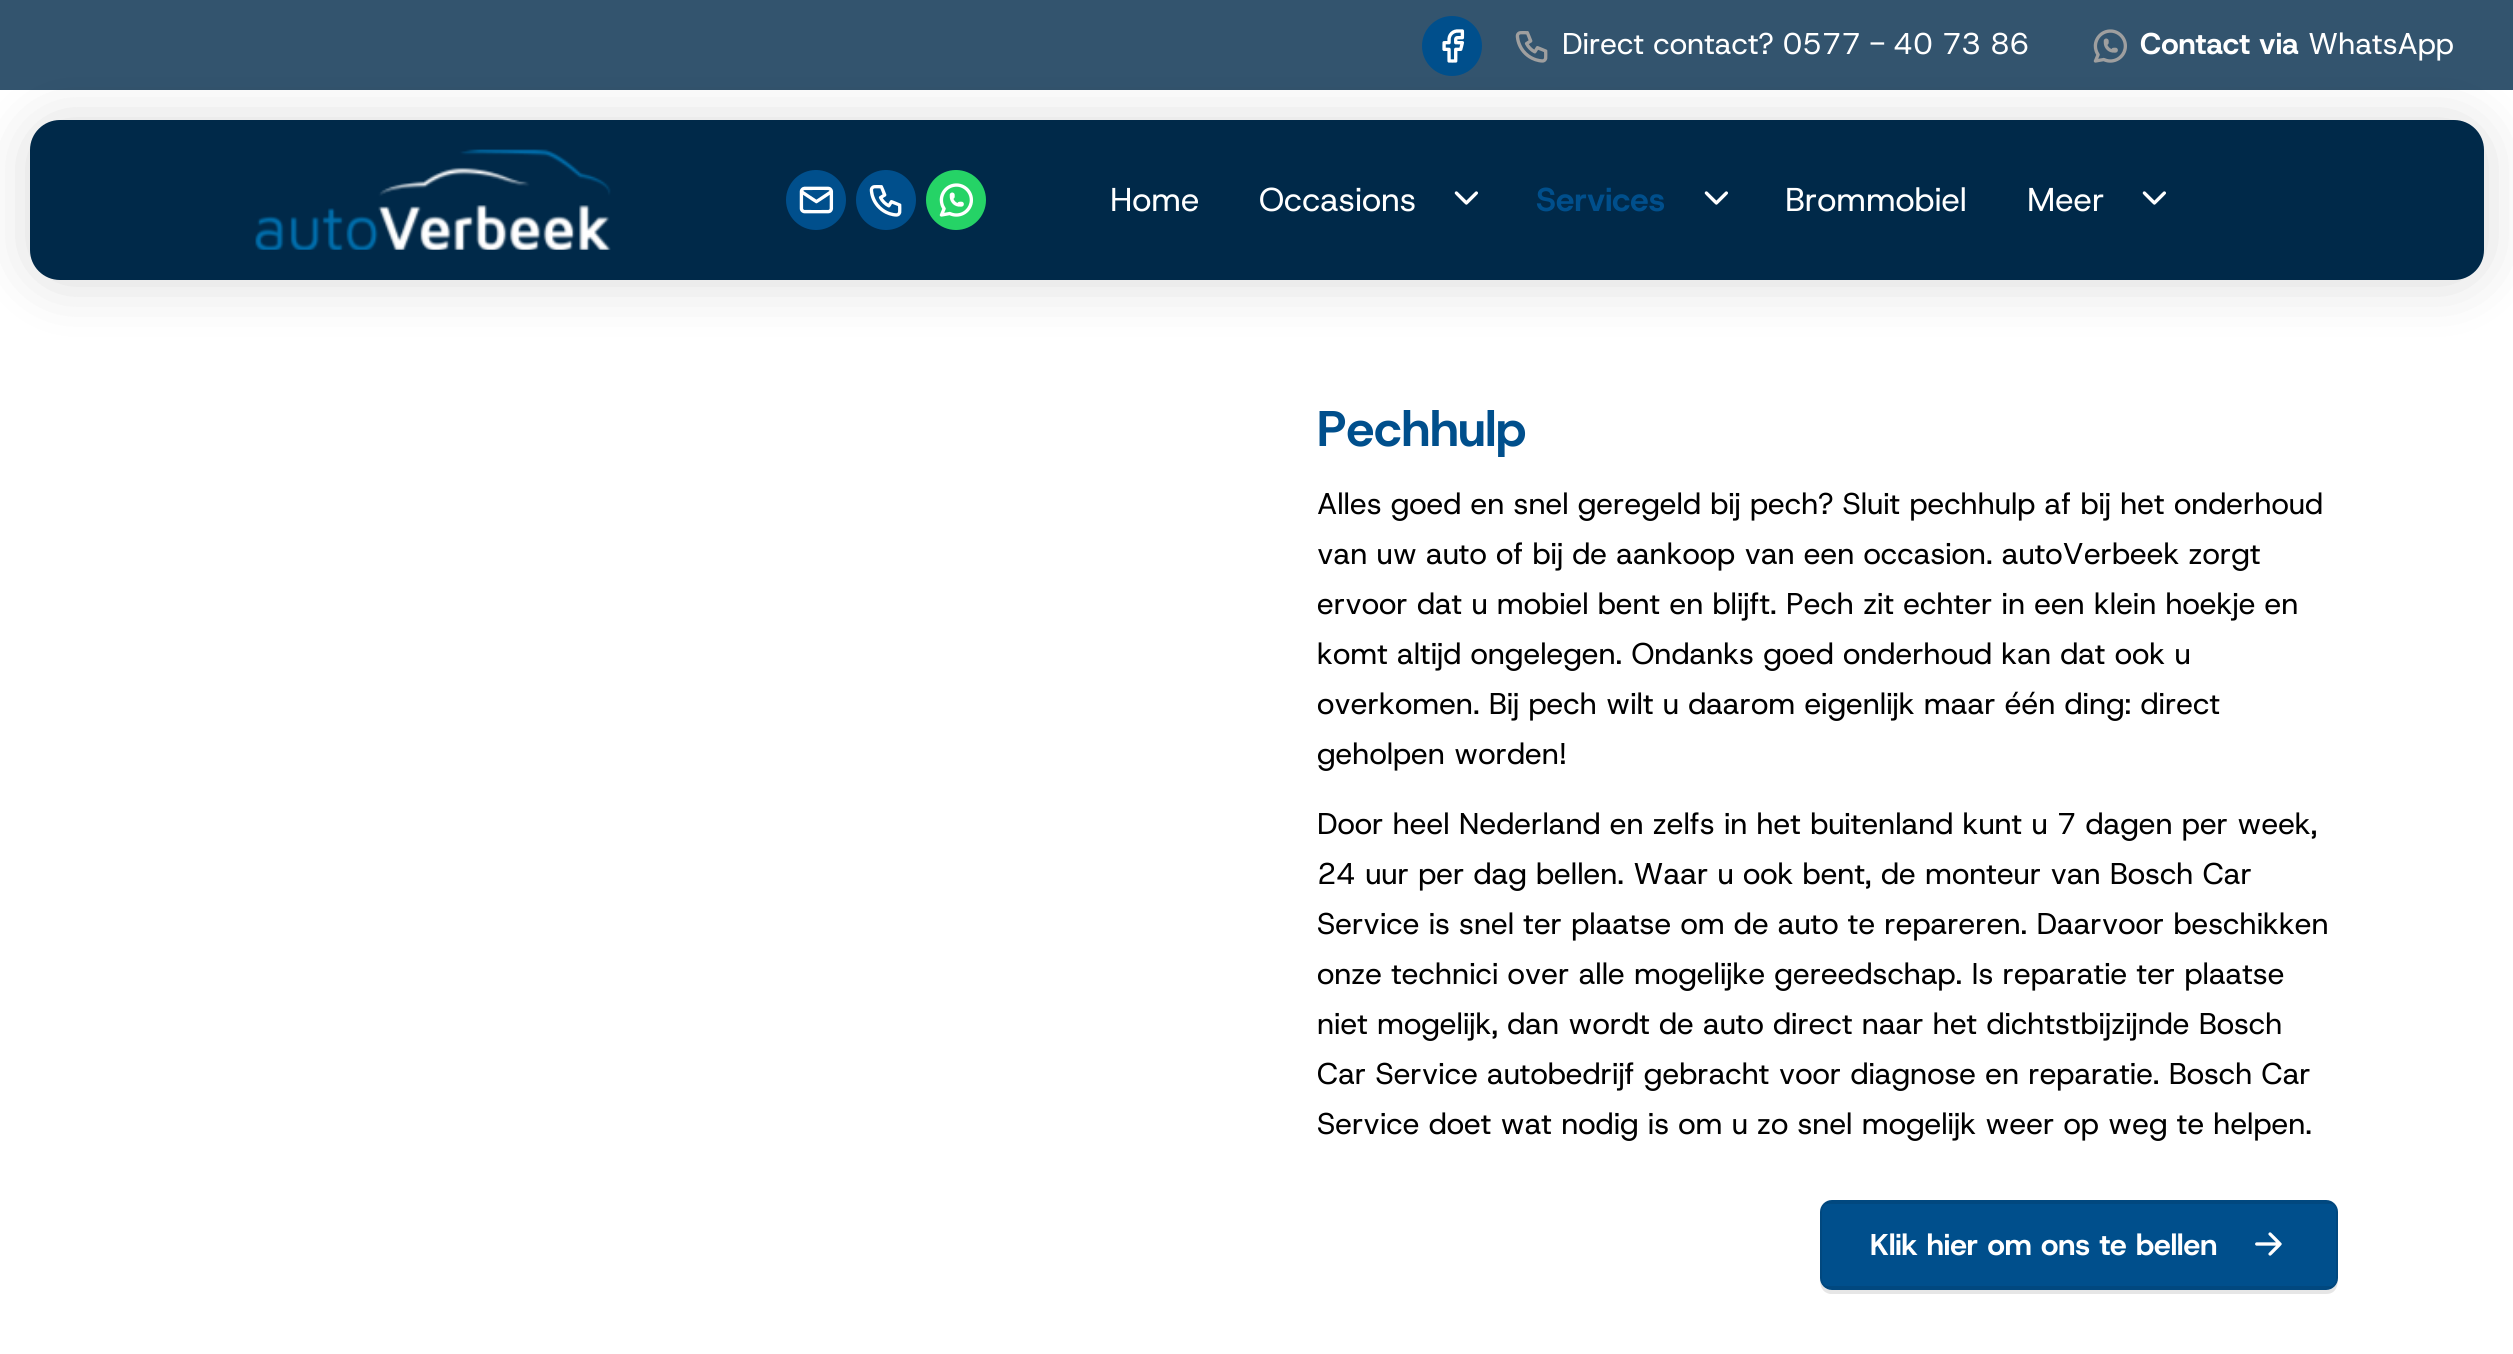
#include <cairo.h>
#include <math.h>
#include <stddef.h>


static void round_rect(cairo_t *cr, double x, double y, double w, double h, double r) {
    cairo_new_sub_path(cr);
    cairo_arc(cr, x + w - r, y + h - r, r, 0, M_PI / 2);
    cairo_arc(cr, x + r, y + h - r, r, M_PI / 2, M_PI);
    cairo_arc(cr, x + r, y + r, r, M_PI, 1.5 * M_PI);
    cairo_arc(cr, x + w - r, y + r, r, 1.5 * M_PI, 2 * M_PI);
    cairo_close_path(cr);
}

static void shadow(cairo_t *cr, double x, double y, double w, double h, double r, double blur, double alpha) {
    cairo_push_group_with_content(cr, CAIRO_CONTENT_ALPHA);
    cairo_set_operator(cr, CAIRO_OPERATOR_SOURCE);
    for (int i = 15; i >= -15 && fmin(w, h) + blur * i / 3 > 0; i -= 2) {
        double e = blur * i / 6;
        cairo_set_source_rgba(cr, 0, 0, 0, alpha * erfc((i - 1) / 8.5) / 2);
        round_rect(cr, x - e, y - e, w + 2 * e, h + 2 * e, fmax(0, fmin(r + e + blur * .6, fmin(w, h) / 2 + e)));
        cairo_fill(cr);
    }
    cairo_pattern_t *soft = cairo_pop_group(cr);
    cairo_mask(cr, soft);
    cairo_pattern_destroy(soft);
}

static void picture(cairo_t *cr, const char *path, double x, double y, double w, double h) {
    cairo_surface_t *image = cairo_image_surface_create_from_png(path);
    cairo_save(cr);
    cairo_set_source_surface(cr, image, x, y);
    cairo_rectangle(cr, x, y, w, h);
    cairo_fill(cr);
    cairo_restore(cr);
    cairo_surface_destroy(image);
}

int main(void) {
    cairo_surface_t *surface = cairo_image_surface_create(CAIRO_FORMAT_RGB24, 2513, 1354);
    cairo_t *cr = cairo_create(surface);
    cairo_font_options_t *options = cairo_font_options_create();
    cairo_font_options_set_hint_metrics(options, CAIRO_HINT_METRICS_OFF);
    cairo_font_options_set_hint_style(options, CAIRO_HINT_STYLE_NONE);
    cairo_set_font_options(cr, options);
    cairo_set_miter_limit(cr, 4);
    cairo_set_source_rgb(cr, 1, 1, 1);
    cairo_paint(cr);
    cairo_set_source_rgb(cr, 0.2, 0.329, 0.431);
    cairo_rectangle(cr, 0, 0, 2513, 90);
    cairo_fill(cr);
    cairo_set_source_rgb(cr, 0, 0.31, 0.549);
    cairo_arc(cr, 1452, 46, 30, 0, 2 * M_PI);
    cairo_fill(cr);
    picture(cr, "img1.png", 1442, 29, 23, 34);
    picture(cr, "img2.png", 1515, 31, 33, 32);
    cairo_select_font_face(cr, "Host Grotesk", CAIRO_FONT_SLANT_NORMAL, CAIRO_FONT_WEIGHT_NORMAL);
    cairo_set_font_size(cr, 30);
    cairo_set_source_rgb(cr, 1, 1, 1);
    cairo_move_to(cr, 1562, 54);
    cairo_show_text(cr, "Direct contact? 0577 - 40 73 86");
    picture(cr, "img3.png", 2093, 29, 34, 34);
    cairo_select_font_face(cr, "Host Grotesk", CAIRO_FONT_SLANT_NORMAL, CAIRO_FONT_WEIGHT_BOLD);
    cairo_move_to(cr, 2140, 54);
    cairo_show_text(cr, "Contact via");
    cairo_select_font_face(cr, "Host Grotesk", CAIRO_FONT_SLANT_NORMAL, CAIRO_FONT_WEIGHT_NORMAL);
    cairo_move_to(cr, 2308, 54);
    cairo_show_text(cr, "WhatsApp");
    cairo_set_source_rgb(cr, 0, 0, 0);
    shadow(cr, 30, 122, 2454, 160, 30, 30, 0.15);
    cairo_set_source_rgb(cr, 0, 0.161, 0.286);
    round_rect(cr, 30, 120, 2454, 160, 30);
    cairo_fill(cr);
    picture(cr, "img4.png", 255, 149, 356, 101);
    cairo_set_source_rgb(cr, 0, 0.31, 0.549);
    cairo_arc(cr, 816, 200, 30, 0, 2 * M_PI);
    cairo_fill(cr);
    picture(cr, "img5.png", 799, 186, 35, 28);
    cairo_arc(cr, 886, 200, 30, 0, 2 * M_PI);
    cairo_fill(cr);
    picture(cr, "img6.png", 869, 185, 33, 32);
    cairo_set_source_rgb(cr, 0.145, 0.827, 0.4);
    cairo_arc(cr, 956, 200, 30, 0, 2 * M_PI);
    cairo_fill(cr);
    picture(cr, "img7.png", 939, 183, 34, 34);
    cairo_set_font_size(cr, 33);
    cairo_set_source_rgb(cr, 1, 1, 1);
    cairo_move_to(cr, 1110, 211);
    cairo_show_text(cr, "Home");
    cairo_move_to(cr, 1259, 211);
    cairo_show_text(cr, "Occasions");
    picture(cr, "img8.png", 1454, 191, 24, 14);
    cairo_select_font_face(cr, "Host Grotesk", CAIRO_FONT_SLANT_NORMAL, CAIRO_FONT_WEIGHT_BOLD);
    cairo_set_source_rgb(cr, 0, 0.31, 0.549);
    cairo_move_to(cr, 1536, 211);
    cairo_show_text(cr, "Services");
    picture(cr, "img8.png", 1704, 191, 24, 14);
    cairo_select_font_face(cr, "Host Grotesk", CAIRO_FONT_SLANT_NORMAL, CAIRO_FONT_WEIGHT_NORMAL);
    cairo_set_source_rgb(cr, 1, 1, 1);
    cairo_move_to(cr, 1785, 211);
    cairo_show_text(cr, "Brommobiel");
    cairo_move_to(cr, 2027, 211);
    cairo_show_text(cr, "Meer");
    picture(cr, "img8.png", 2142, 191, 24, 14);
    cairo_select_font_face(cr, "Host Grotesk", CAIRO_FONT_SLANT_NORMAL, CAIRO_FONT_WEIGHT_BOLD);
    cairo_set_font_size(cr, 50);
    cairo_set_source_rgb(cr, 0, 0.31, 0.549);
    cairo_move_to(cr, 1317, 446);
    cairo_show_text(cr, "Pechhulp");
    cairo_select_font_face(cr, "Host Grotesk", CAIRO_FONT_SLANT_NORMAL, CAIRO_FONT_WEIGHT_NORMAL);
    cairo_set_font_size(cr, 30);
    cairo_set_source_rgb(cr, 0, 0, 0);
    cairo_move_to(cr, 1317, 514);
    cairo_show_text(cr, "Alles goed en snel geregeld bij pech? Sluit pechhulp af bij het onderhoud");
    cairo_move_to(cr, 1317, 564);
    cairo_show_text(cr, "van uw auto of bij de aankoop van een occasion. autoVerbeek zorgt");
    cairo_move_to(cr, 1317, 614);
    cairo_show_text(cr, "ervoor dat u mobiel bent en blijft. Pech zit echter in een klein hoekje en");
    cairo_move_to(cr, 1317, 664);
    cairo_show_text(cr, "komt altijd ongelegen. Ondanks goed onderhoud kan dat ook u");
    cairo_move_to(cr, 1317, 714);
    cairo_show_text(cr, "overkomen. Bij pech wilt u daarom eigenlijk maar één ding: direct");
    cairo_move_to(cr, 1317, 764);
    cairo_show_text(cr, "geholpen worden!");
    cairo_move_to(cr, 1317, 834);
    cairo_show_text(cr, "Door heel Nederland en zelfs in het buitenland kunt u 7 dagen per week,");
    cairo_move_to(cr, 1317, 884);
    cairo_show_text(cr, "24 uur per dag bellen. Waar u ook bent, de monteur van Bosch Car");
    cairo_move_to(cr, 1317, 934);
    cairo_show_text(cr, "Service is snel ter plaatse om de auto te repareren. Daarvoor beschikken");
    cairo_move_to(cr, 1317, 984);
    cairo_show_text(cr, "onze technici over alle mogelijke gereedschap. Is reparatie ter plaatse");
    cairo_move_to(cr, 1317, 1034);
    cairo_show_text(cr, "niet mogelijk, dan wordt de auto direct naar het dichtstbijzijnde Bosch");
    cairo_move_to(cr, 1317, 1084);
    cairo_show_text(cr, "Car Service autobedrijf gebracht voor diagnose en reparatie. Bosch Car");
    cairo_move_to(cr, 1317, 1134);
    cairo_show_text(cr, "Service doet wat nodig is om u zo snel mogelijk weer op weg te helpen.");
    cairo_set_source_rgb(cr, 0.902, 0.902, 0.902);
    cairo_new_path(cr);
    cairo_move_to(cr, 1820, 1278);
    cairo_curve_to(cr, 1820, 1285, 1821, 1292, 1830, 1294);
    cairo_line_to(cr, 2326, 1294);
    cairo_curve_to(cr, 2336, 1294, 2338, 1286, 2338, 1278);
    cairo_curve_to(cr, 2338, 1285, 2333, 1290, 2326, 1290);
    cairo_line_to(cr, 1832, 1290);
    cairo_curve_to(cr, 1825, 1290, 1820, 1285, 1820, 1278);
    cairo_close_path(cr);
    cairo_fill(cr);
    cairo_set_source_rgb(cr, 0, 0.31, 0.549);
    round_rect(cr, 1820, 1200, 518, 90, 12);
    cairo_fill(cr);
    picture(cr, "img9.png", 2255, 1232, 27, 24);
    round_rect(cr, 1821, 1201, 516, 88, 11);
    cairo_set_source_rgba(cr, 0.063, 0.063, 0.063, 0.1);
    cairo_stroke(cr);
    cairo_rectangle(cr, 1826, 1202, 506, 2);
    cairo_fill(cr);
    cairo_rectangle(cr, 1826, 1286, 506, 2);
    cairo_fill(cr);
    cairo_select_font_face(cr, "Host Grotesk", CAIRO_FONT_SLANT_NORMAL, CAIRO_FONT_WEIGHT_BOLD);
    cairo_set_source_rgb(cr, 1, 1, 1);
    cairo_move_to(cr, 1870, 1255);
    cairo_show_text(cr, "Klik hier om ons te bellen");
    cairo_surface_write_to_png(surface, "page.png");
    cairo_font_options_destroy(options);
    cairo_destroy(cr);
    cairo_surface_destroy(surface);
    return 0;
}
